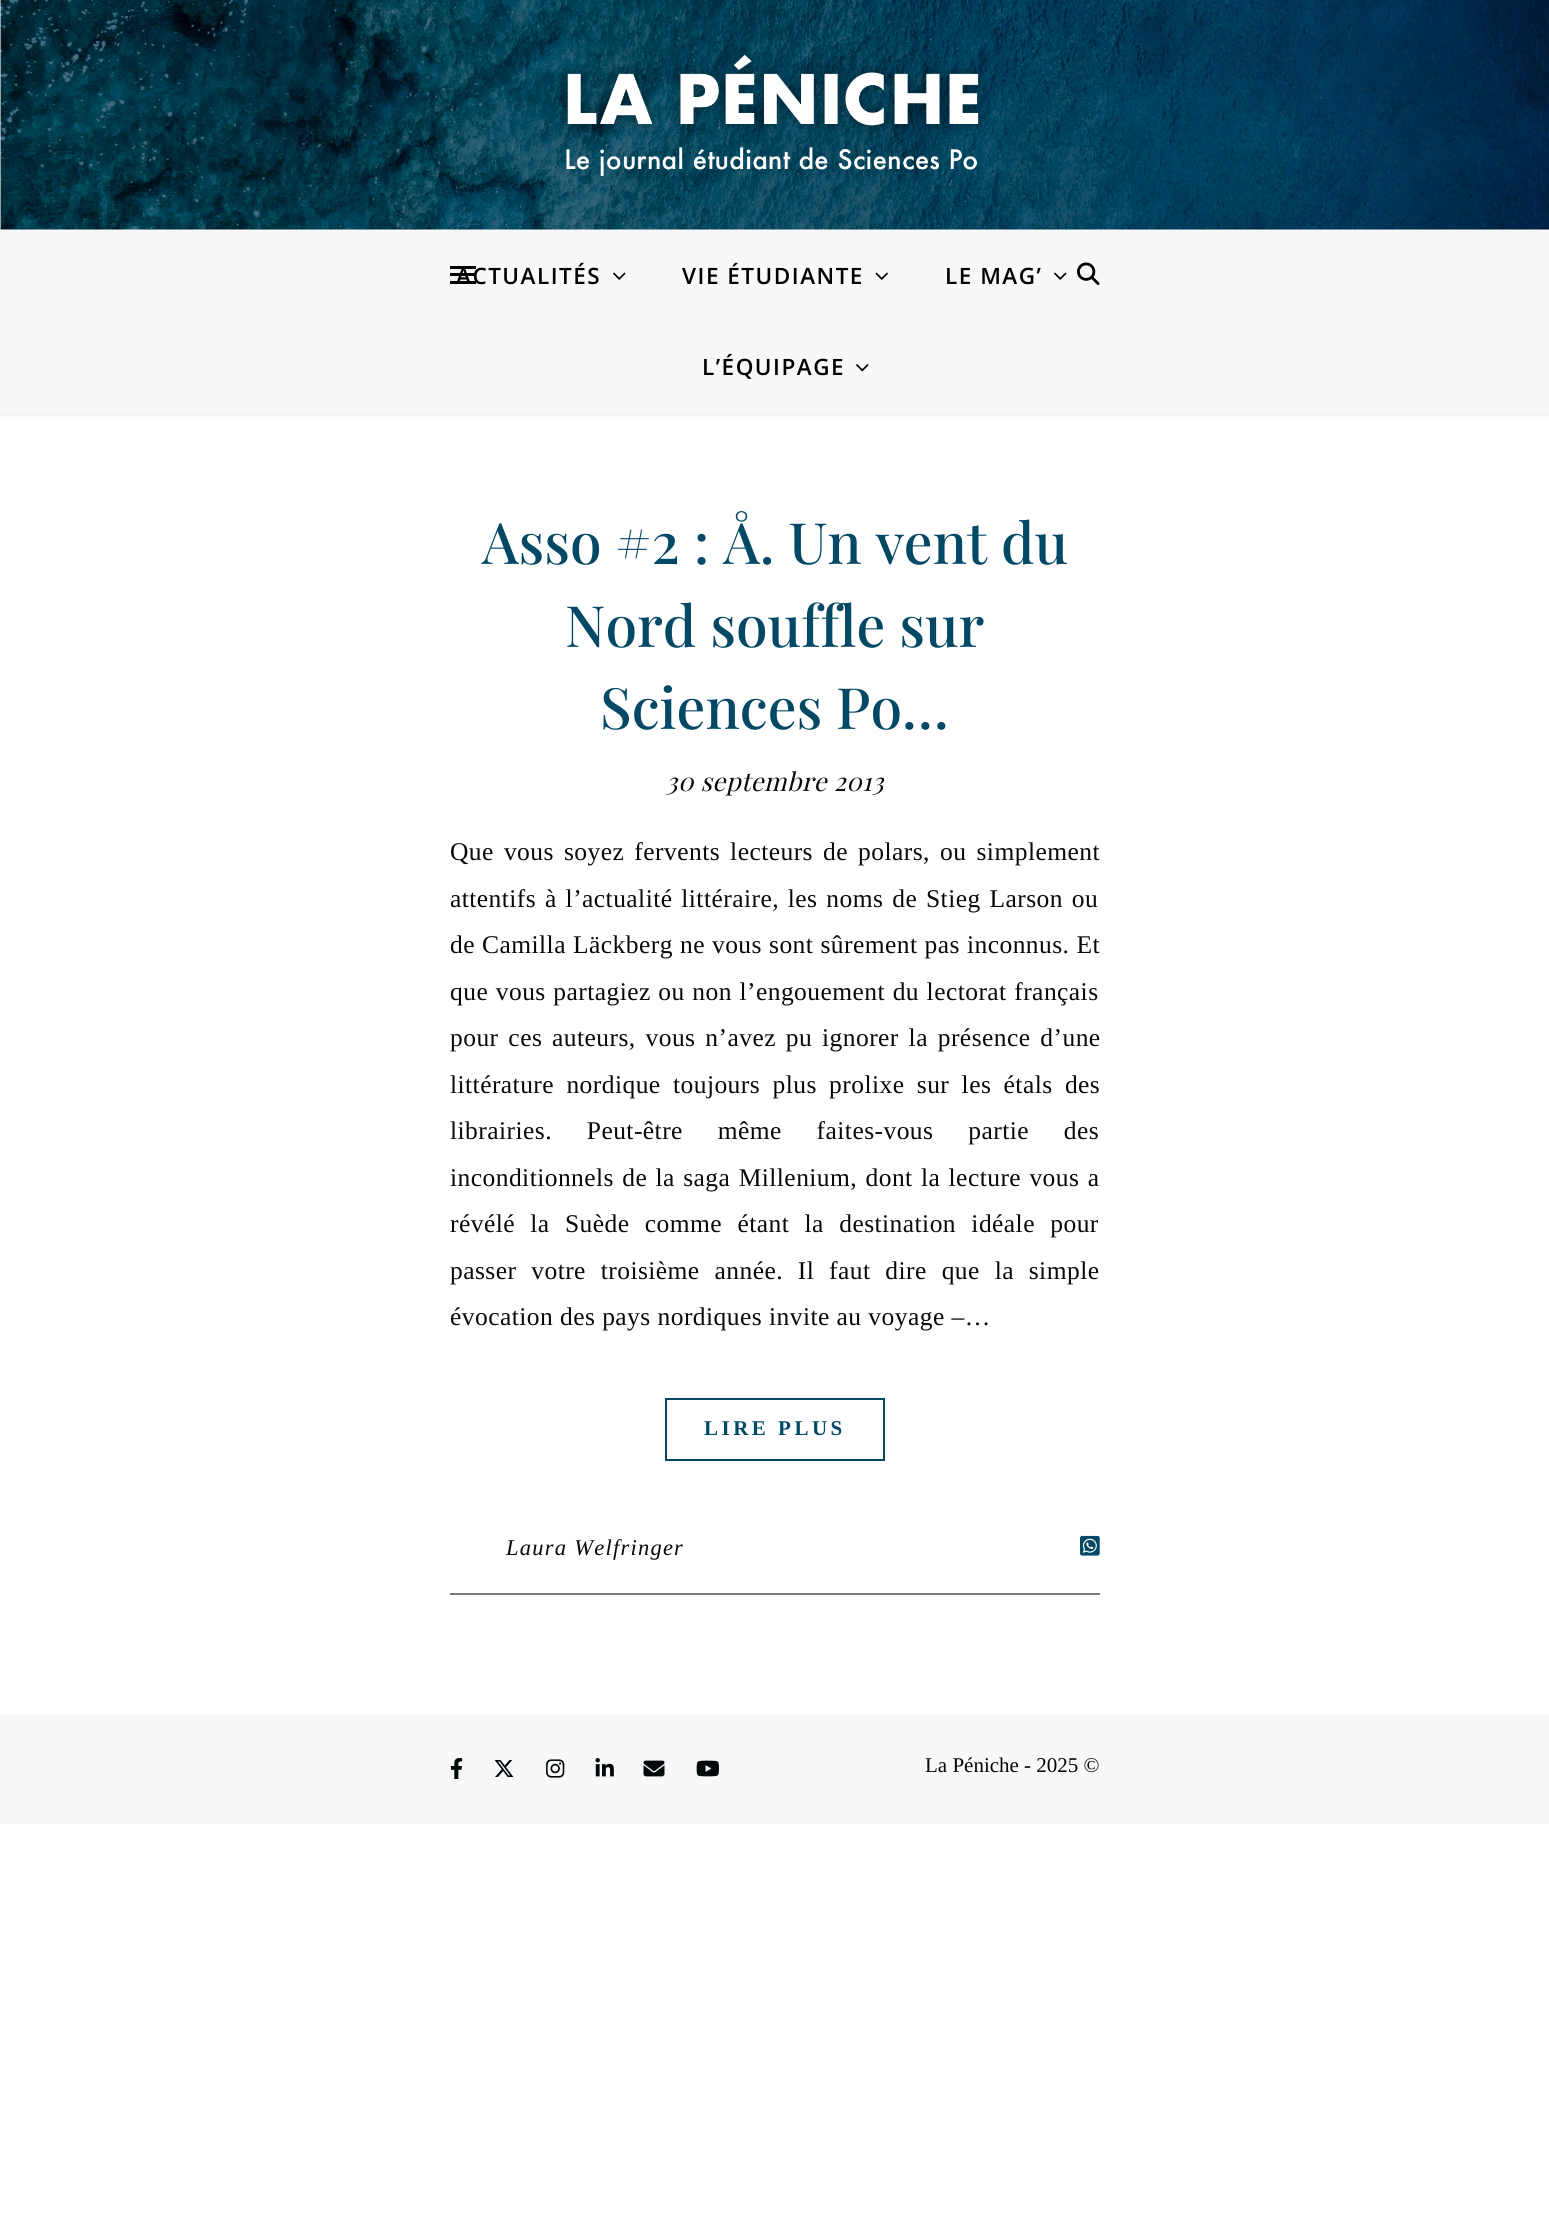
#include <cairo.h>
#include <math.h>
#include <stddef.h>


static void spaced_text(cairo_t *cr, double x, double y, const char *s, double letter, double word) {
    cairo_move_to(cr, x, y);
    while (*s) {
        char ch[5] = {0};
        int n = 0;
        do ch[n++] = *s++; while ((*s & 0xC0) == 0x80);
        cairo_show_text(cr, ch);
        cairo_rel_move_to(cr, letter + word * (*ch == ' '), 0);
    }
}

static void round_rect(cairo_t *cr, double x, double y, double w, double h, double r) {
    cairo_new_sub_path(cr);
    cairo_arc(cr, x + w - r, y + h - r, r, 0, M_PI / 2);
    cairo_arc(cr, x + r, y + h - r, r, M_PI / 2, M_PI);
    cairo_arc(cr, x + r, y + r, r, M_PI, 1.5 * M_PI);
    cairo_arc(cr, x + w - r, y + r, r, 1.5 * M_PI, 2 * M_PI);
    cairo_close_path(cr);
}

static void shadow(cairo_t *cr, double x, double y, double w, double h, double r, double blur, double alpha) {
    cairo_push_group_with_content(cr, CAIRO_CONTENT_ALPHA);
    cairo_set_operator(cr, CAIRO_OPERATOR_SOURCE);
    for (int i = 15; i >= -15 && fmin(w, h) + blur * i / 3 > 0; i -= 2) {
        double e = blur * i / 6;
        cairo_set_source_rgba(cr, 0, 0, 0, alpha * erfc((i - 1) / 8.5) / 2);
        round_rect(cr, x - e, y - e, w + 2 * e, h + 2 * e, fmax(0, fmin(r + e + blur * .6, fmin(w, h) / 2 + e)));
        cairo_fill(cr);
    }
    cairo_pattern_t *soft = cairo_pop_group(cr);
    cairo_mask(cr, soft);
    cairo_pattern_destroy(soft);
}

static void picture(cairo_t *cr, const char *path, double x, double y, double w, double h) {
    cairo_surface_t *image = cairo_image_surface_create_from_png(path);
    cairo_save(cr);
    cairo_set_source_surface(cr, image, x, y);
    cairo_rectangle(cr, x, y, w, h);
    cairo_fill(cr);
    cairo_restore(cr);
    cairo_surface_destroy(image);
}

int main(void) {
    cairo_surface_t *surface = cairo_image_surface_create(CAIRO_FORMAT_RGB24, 1549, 2239);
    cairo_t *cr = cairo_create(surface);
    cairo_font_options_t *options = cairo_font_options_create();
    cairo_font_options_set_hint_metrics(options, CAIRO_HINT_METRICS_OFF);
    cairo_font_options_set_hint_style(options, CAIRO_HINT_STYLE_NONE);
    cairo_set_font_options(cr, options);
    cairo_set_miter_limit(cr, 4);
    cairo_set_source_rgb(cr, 1, 1, 1);
    cairo_paint(cr);
    picture(cr, "img1.png", 0, 0, 1549, 230);
    cairo_set_source_rgb(cr, 0, 0, 0);
    shadow(cr, 0, 231, 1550, 183, 0, 4, 0.1);
    cairo_set_source_rgb(cr, 0.969, 0.969, 0.969);
    cairo_rectangle(cr, 0, 230, 1549, 183);
    cairo_fill(cr);
    cairo_select_font_face(cr, "Open Sans SemiBold", CAIRO_FONT_SLANT_NORMAL, CAIRO_FONT_WEIGHT_NORMAL);
    cairo_set_font_size(cr, 22.5);
    cairo_set_source_rgb(cr, 0, 0, 0);
    spaced_text(cr, 456, 284, "ACTUALITÉS", 1.5, 0);
    picture(cr, "img2.png", 613, 272, 13, 8);
    spaced_text(cr, 682, 284, "VIE ÉTUDIANTE", 1.5, 0);
    picture(cr, "img3.png", 875, 272, 13, 8);
    spaced_text(cr, 945, 284, "LE MAG’", 1.5, 0);
    picture(cr, "img2.png", 1054, 272, 13, 8);
    spaced_text(cr, 702, 375, "L’ÉQUIPAGE", 1.5, 0);
    picture(cr, "img4.png", 856, 364, 13, 8);
    picture(cr, "img5.png", 1077, 262, 23, 23);
    cairo_rectangle(cr, 450, 266, 26, 3);
    cairo_fill(cr);
    cairo_rectangle(cr, 450, 273, 26, 3);
    cairo_fill(cr);
    cairo_rectangle(cr, 450, 281, 26, 3);
    cairo_fill(cr);
    cairo_select_font_face(cr, "Playfair Display Medium", CAIRO_FONT_SLANT_NORMAL, CAIRO_FONT_WEIGHT_NORMAL);
    cairo_set_font_size(cr, 57);
    cairo_set_source_rgb(cr, 0.012, 0.282, 0.396);
    cairo_move_to(cr, 482, 564);
    cairo_show_text(cr, "Asso #2 : Å. Un vent du");
    cairo_move_to(cr, 565, 647);
    cairo_show_text(cr, "Nord souffle sur");
    cairo_move_to(cr, 600, 729);
    cairo_show_text(cr, "Sciences Po…");
    cairo_select_font_face(cr, "Playfair Display", CAIRO_FONT_SLANT_ITALIC, CAIRO_FONT_WEIGHT_NORMAL);
    cairo_set_font_size(cr, 25.5);
    cairo_set_source_rgb(cr, 0.039, 0.039, 0.039);
    spaced_text(cr, 666, 791, "30 septembre 2013", 0.45, 0);
    cairo_select_font_face(cr, "Liberation Serif", CAIRO_FONT_SLANT_NORMAL, CAIRO_FONT_WEIGHT_NORMAL);
    spaced_text(cr, 450, 860, "Que vous soyez fervents lecteurs de polars, ou simplement", 0.45, 3.25);
    spaced_text(cr, 450, 907, "attentifs à l’actualité littéraire, les noms de Stieg Larson ou", 0.45, 2);
    spaced_text(cr, 450, 953, "de Camilla Läckberg ne vous sont sûrement pas inconnus. Et", 0.45, 0.25);
    spaced_text(cr, 450, 1000, "que vous partagiez ou non l’engouement du lectorat français", 0.45, 0.75);
    spaced_text(cr, 450, 1046, "pour ces auteurs, vous n’avez pu ignorer la présence d’une", 0.45, 3);
    spaced_text(cr, 450, 1093, "littérature nordique toujours plus prolixe sur les étals des", 0.45, 5.5);
    spaced_text(cr, 450, 1139, "librairies. Peut-être même faites-vous partie des", 0.45, 28);
    spaced_text(cr, 450, 1186, "inconditionnels de la saga Millenium, dont la lecture vous a", 0.45, 1.5);
    spaced_text(cr, 450, 1232, "révélé la Suède comme étant la destination idéale pour", 0.45, 8.5);
    spaced_text(cr, 450, 1279, "passer votre troisième année. Il faut dire que la simple", 0.45, 8);
    spaced_text(cr, 450, 1325, "évocation des pays nordiques invite au voyage –…", 0.45, 0);
    cairo_rectangle(cr, 666, 1399, 218, 61);
    cairo_set_source_rgb(cr, 0.012, 0.282, 0.396);
    cairo_stroke(cr);
    cairo_select_font_face(cr, "Liberation Serif", CAIRO_FONT_SLANT_NORMAL, CAIRO_FONT_WEIGHT_BOLD);
    cairo_set_font_size(cr, 21);
    spaced_text(cr, 704, 1435, "LIRE PLUS", 3.5, 0);
    cairo_set_source_rgb(cr, 0.478, 0.478, 0.478);
    cairo_rectangle(cr, 450, 1593, 650, 2);
    cairo_fill(cr);
    cairo_select_font_face(cr, "Liberation Serif", CAIRO_FONT_SLANT_ITALIC, CAIRO_FONT_WEIGHT_NORMAL);
    cairo_set_font_size(cr, 22.5);
    cairo_set_source_rgb(cr, 0.039, 0.039, 0.039);
    spaced_text(cr, 506, 1555, "Laura Welfringer", 1.25, 0);
    picture(cr, "img6.png", 1080, 1535, 20, 21);
    cairo_set_source_rgb(cr, 0.969, 0.969, 0.969);
    cairo_rectangle(cr, 0, 1715, 1549, 109);
    cairo_fill(cr);
    picture(cr, "img7.png", 450, 1758, 13, 21);
    picture(cr, "img8.png", 494, 1760, 20, 17);
    picture(cr, "img9.png", 546, 1759, 19, 19);
    picture(cr, "img10.png", 595, 1758, 19, 19);
    picture(cr, "img11.png", 643, 1760, 22, 17);
    picture(cr, "img12.png", 696, 1760, 23, 17);
    cairo_select_font_face(cr, "Liberation Serif", CAIRO_FONT_SLANT_NORMAL, CAIRO_FONT_WEIGHT_NORMAL);
    cairo_set_font_size(cr, 21);
    cairo_set_source_rgb(cr, 0, 0.027, 0.039);
    cairo_move_to(cr, 925, 1772);
    cairo_show_text(cr, "La Péniche - 2025 ©");
    cairo_surface_write_to_png(surface, "page.png");
    cairo_font_options_destroy(options);
    cairo_destroy(cr);
    cairo_surface_destroy(surface);
    return 0;
}
